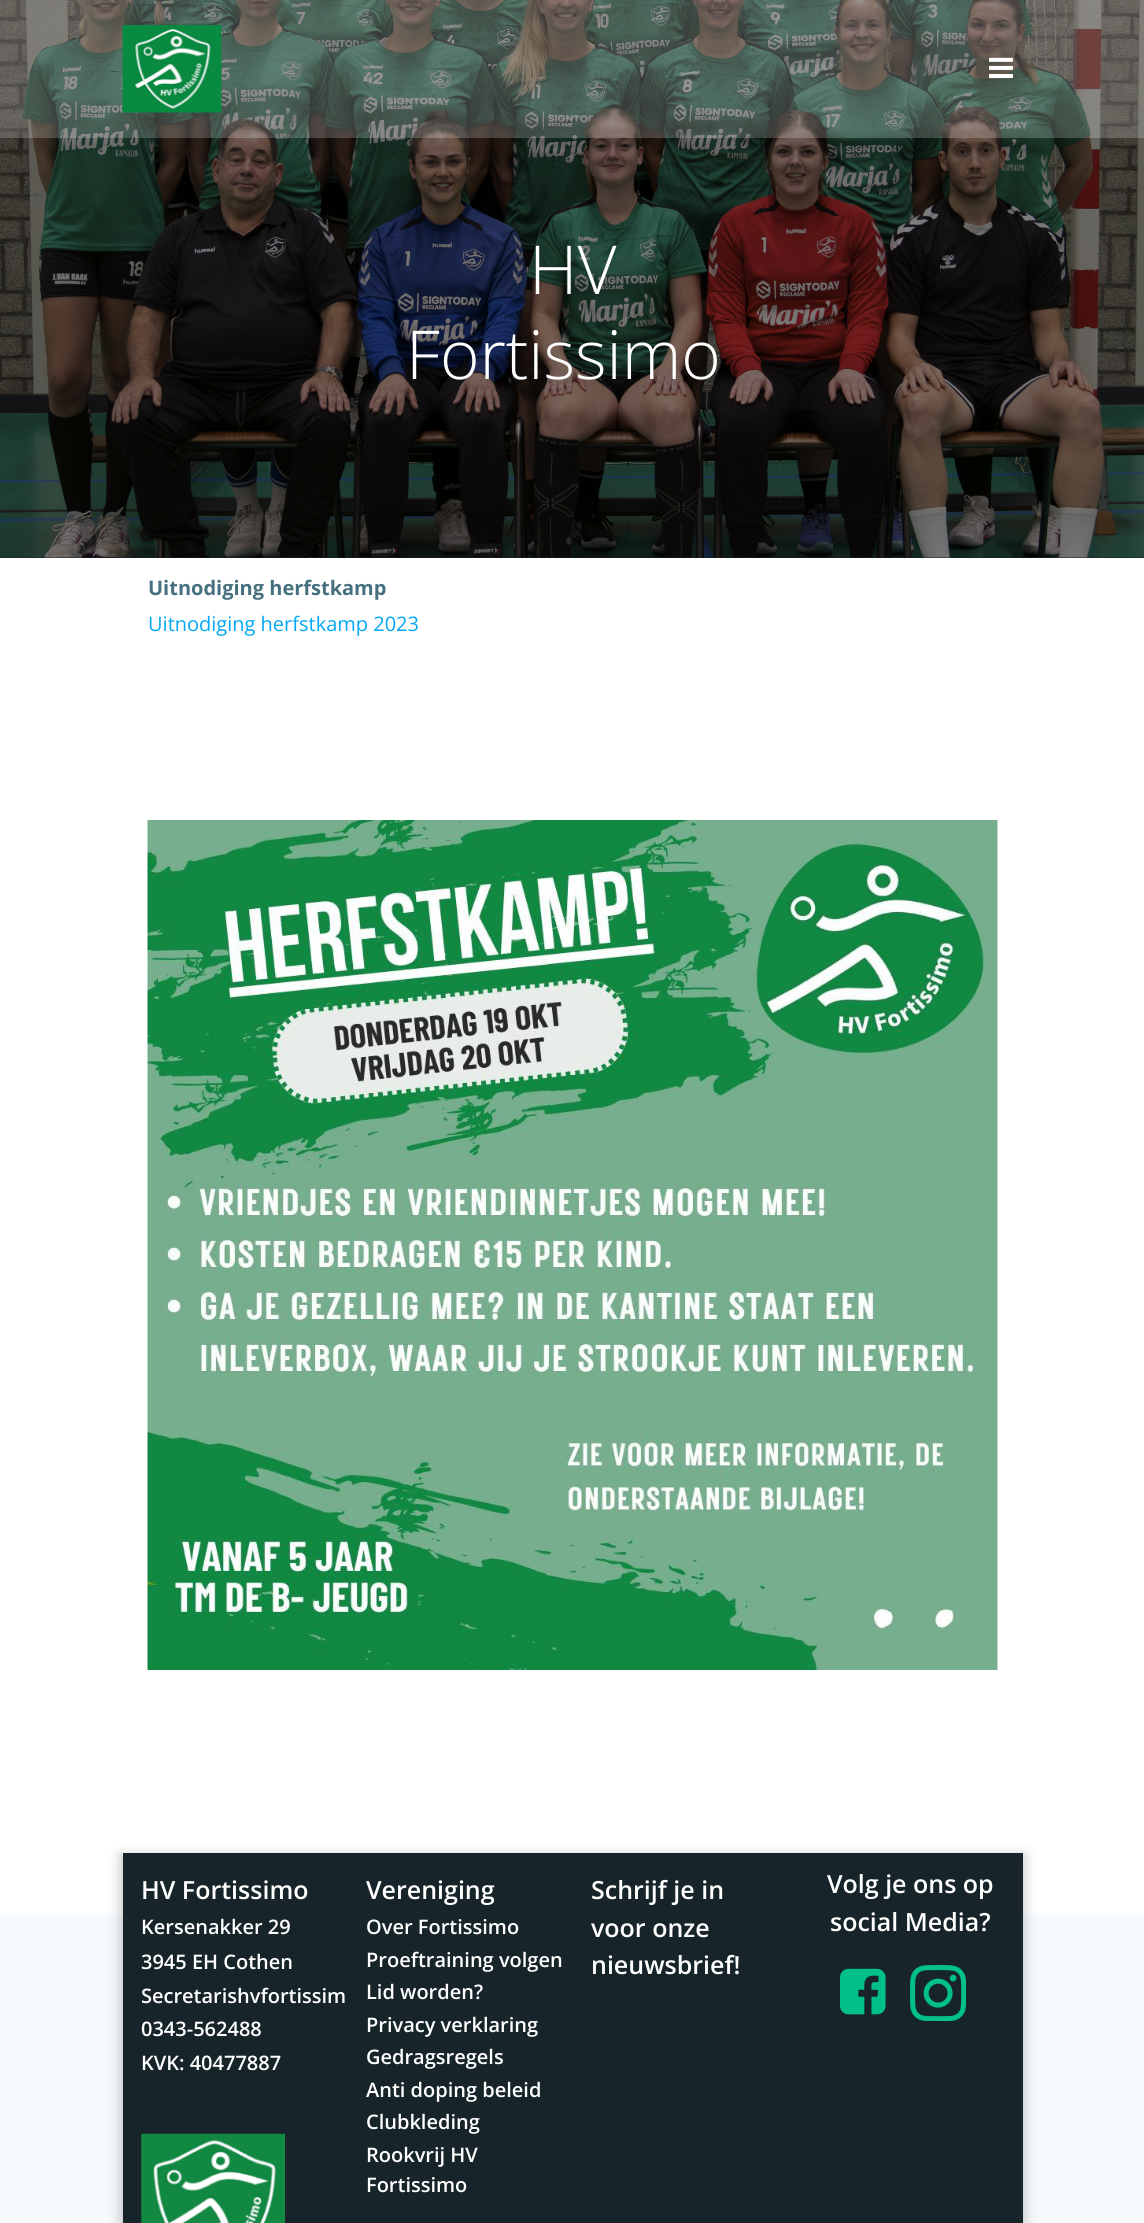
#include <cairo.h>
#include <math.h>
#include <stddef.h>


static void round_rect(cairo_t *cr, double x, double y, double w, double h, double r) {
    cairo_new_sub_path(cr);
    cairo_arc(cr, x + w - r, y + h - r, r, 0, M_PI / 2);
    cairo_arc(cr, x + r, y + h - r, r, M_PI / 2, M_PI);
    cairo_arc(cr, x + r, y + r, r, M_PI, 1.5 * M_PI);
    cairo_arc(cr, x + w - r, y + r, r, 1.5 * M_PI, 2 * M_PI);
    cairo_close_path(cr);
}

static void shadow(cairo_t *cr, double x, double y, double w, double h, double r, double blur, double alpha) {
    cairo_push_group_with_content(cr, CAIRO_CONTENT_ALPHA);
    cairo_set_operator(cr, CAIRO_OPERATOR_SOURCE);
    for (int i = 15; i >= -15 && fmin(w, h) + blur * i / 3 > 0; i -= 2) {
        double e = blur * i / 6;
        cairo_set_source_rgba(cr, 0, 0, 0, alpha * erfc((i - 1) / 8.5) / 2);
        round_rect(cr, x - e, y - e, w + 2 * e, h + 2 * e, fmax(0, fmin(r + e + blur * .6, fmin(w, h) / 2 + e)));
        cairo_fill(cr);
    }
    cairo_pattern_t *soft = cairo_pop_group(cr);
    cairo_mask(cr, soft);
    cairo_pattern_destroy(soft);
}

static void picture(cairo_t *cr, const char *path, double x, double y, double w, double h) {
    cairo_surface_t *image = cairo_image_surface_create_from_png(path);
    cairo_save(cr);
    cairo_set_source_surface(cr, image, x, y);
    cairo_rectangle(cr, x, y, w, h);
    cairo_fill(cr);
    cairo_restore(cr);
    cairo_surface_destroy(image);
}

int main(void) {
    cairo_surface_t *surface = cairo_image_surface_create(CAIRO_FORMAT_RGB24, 1144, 2223);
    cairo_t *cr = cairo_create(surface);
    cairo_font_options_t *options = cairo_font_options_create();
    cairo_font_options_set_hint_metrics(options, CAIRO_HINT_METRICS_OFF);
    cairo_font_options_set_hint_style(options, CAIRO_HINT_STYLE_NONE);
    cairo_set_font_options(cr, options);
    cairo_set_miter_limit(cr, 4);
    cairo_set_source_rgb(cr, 1, 1, 1);
    cairo_paint(cr);
    cairo_set_source_rgb(cr, 0.106, 0.118, 0.122);
    cairo_rectangle(cr, 0, 557, 1144, 1);
    cairo_fill(cr);
    picture(cr, "img3.png", 0, 0, 1144, 558);
    cairo_set_source_rgba(cr, 1, 1, 1, 0.2);
    cairo_rectangle(cr, 0, 0, 1144, 138);
    cairo_fill(cr);
    picture(cr, "img1.png", 122, 25, 100, 88);
    picture(cr, "img2.png", 989, 57, 25, 22);
    cairo_select_font_face(cr, "Open Sans Light", CAIRO_FONT_SLANT_NORMAL, CAIRO_FONT_WEIGHT_NORMAL);
    cairo_set_font_size(cr, 67.5);
    cairo_set_source_rgb(cr, 1, 1, 1);
    cairo_move_to(cr, 529, 294);
    cairo_show_text(cr, "HV");
    cairo_move_to(cr, 406, 379);
    cairo_show_text(cr, "Fortissimo");
    cairo_select_font_face(cr, "Open Sans", CAIRO_FONT_SLANT_NORMAL, CAIRO_FONT_WEIGHT_BOLD);
    cairo_set_font_size(cr, 20);
    cairo_set_source_rgb(cr, 0.275, 0.439, 0.498);
    cairo_move_to(cr, 148, 595);
    cairo_show_text(cr, "Uitnodiging herfstkamp");
    cairo_select_font_face(cr, "Open Sans", CAIRO_FONT_SLANT_NORMAL, CAIRO_FONT_WEIGHT_NORMAL);
    cairo_set_source_rgb(cr, 0.012, 0.663, 0.957);
    cairo_move_to(cr, 148, 631);
    cairo_show_text(cr, "Uitnodiging herfstkamp 2023");
    picture(cr, "img4.png", 147, 820, 851, 850);
    cairo_set_source_rgb(cr, 0.961, 0.98, 0.992);
    cairo_rectangle(cr, 0, 1915, 1144, 308);
    cairo_fill(cr);
    cairo_set_source_rgb(cr, 0.29, 0.29, 0.29);
    shadow(cr, 120, 1855, 905, 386, 0, 6, 0.3);
    cairo_set_source_rgb(cr, 0.09, 0.145, 0.165);
    cairo_rectangle(cr, 123, 1853, 900, 370);
    cairo_fill(cr);
    cairo_select_font_face(cr, "Open Sans SemiBold", CAIRO_FONT_SLANT_NORMAL, CAIRO_FONT_WEIGHT_NORMAL);
    cairo_set_font_size(cr, 25);
    cairo_set_source_rgb(cr, 1, 1, 1);
    cairo_move_to(cr, 141, 1899);
    cairo_show_text(cr, "HV Fortissimo");
    cairo_set_font_size(cr, 20);
    cairo_move_to(cr, 141, 1934);
    cairo_show_text(cr, "Kersenakker 29");
    cairo_move_to(cr, 141, 1969);
    cairo_show_text(cr, "3945 EH Cothen");
    cairo_move_to(cr, 141, 2003);
    cairo_show_text(cr, "Secretarishvfortissim");
    cairo_move_to(cr, 141, 2036);
    cairo_show_text(cr, "0343-562488");
    cairo_move_to(cr, 141, 2070);
    cairo_show_text(cr, "KVK: 40477887");
    picture(cr, "img5.png", 141, 2133, 144, 90);
    cairo_set_font_size(cr, 25);
    cairo_move_to(cr, 366, 1899);
    cairo_show_text(cr, "Vereniging");
    cairo_set_font_size(cr, 20);
    cairo_move_to(cr, 366, 1934);
    cairo_show_text(cr, "Over Fortissimo");
    cairo_move_to(cr, 366, 1967);
    cairo_show_text(cr, "Proeftraining volgen");
    cairo_move_to(cr, 366, 1999);
    cairo_show_text(cr, "Lid worden?");
    cairo_move_to(cr, 366, 2032);
    cairo_show_text(cr, "Privacy verklaring");
    cairo_move_to(cr, 366, 2064);
    cairo_show_text(cr, "Gedragsregels");
    cairo_move_to(cr, 366, 2097);
    cairo_show_text(cr, "Anti doping beleid");
    cairo_move_to(cr, 366, 2129);
    cairo_show_text(cr, "Clubkleding");
    cairo_move_to(cr, 366, 2162);
    cairo_show_text(cr, "Rookvrij HV");
    cairo_move_to(cr, 366, 2192);
    cairo_show_text(cr, "Fortissimo");
    cairo_set_font_size(cr, 25);
    cairo_move_to(cr, 591, 1899);
    cairo_show_text(cr, "Schrijf je in");
    cairo_move_to(cr, 591, 1937);
    cairo_show_text(cr, "voor onze");
    cairo_move_to(cr, 591, 1974);
    cairo_show_text(cr, "nieuwsbrief!");
    cairo_move_to(cr, 827, 1893);
    cairo_show_text(cr, "Volg je ons op");
    cairo_move_to(cr, 830, 1931);
    cairo_show_text(cr, "social Media?");
    picture(cr, "img6.png", 840, 1968, 46, 47);
    picture(cr, "img7.png", 910, 1965, 56, 56);
    cairo_surface_write_to_png(surface, "page.png");
    cairo_font_options_destroy(options);
    cairo_destroy(cr);
    cairo_surface_destroy(surface);
    return 0;
}
